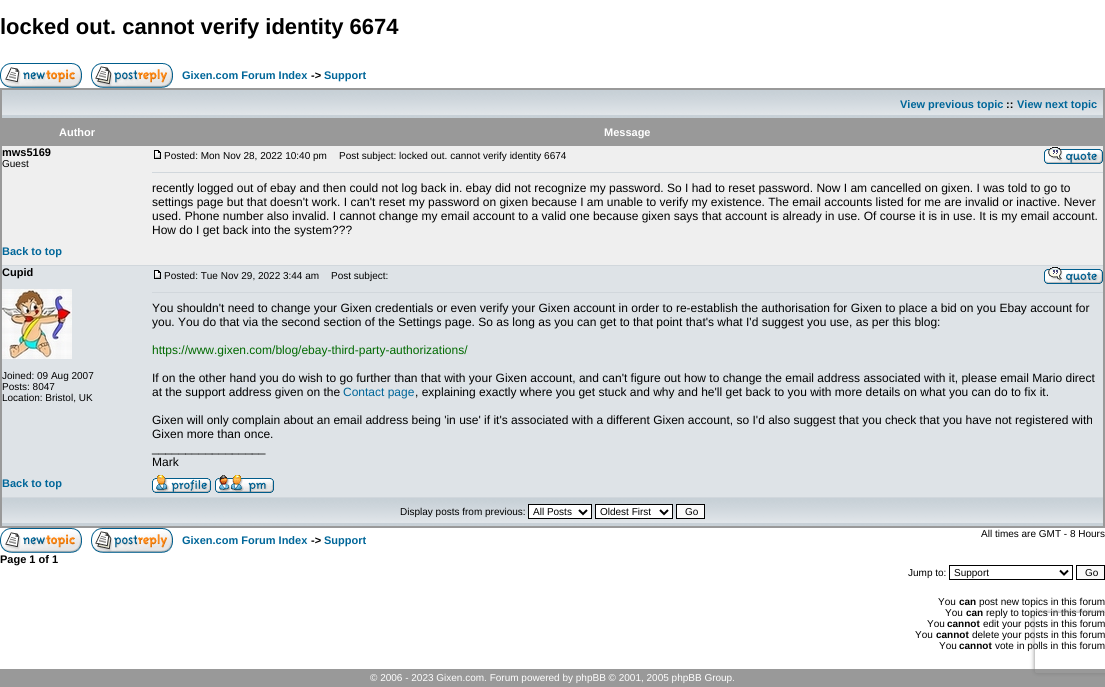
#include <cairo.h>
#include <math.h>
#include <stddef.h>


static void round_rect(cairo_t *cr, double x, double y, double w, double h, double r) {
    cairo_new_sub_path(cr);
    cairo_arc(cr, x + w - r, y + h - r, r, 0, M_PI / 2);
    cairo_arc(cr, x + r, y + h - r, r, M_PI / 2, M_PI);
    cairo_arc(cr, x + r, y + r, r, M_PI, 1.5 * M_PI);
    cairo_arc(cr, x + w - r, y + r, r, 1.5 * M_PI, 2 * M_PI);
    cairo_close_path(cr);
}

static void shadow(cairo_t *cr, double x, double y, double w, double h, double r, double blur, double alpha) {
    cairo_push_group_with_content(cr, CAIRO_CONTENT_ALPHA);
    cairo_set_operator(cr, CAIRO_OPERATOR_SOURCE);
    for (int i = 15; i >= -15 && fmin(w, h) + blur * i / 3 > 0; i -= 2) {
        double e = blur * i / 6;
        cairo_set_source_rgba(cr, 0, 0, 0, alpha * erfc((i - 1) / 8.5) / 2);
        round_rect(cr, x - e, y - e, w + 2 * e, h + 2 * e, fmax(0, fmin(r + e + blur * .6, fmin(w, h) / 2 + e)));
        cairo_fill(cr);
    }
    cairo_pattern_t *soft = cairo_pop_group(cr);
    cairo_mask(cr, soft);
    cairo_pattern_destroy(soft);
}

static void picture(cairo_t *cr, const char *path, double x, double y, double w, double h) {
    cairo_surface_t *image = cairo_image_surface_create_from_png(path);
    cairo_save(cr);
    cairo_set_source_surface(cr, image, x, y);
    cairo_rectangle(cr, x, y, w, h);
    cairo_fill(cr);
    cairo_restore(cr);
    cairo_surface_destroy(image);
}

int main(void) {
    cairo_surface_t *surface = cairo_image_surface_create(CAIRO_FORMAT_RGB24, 1105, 687);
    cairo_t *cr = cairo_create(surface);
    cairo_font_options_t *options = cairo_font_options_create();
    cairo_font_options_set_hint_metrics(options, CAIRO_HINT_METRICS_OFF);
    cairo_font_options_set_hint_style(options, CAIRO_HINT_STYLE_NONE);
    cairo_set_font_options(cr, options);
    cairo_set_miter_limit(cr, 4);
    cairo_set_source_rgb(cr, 1, 1, 1);
    cairo_paint(cr);
    cairo_select_font_face(cr, "Liberation Sans", CAIRO_FONT_SLANT_NORMAL, CAIRO_FONT_WEIGHT_BOLD);
    cairo_set_font_size(cr, 22);
    cairo_set_source_rgb(cr, 0, 0, 0);
    cairo_move_to(cr, 0, 34);
    cairo_show_text(cr, "locked out. cannot verify identity 6674");
    picture(cr, "img1.png", 0, 63, 82, 25);
    picture(cr, "img2.png", 91, 63, 82, 25);
    cairo_set_font_size(cr, 11);
    cairo_set_source_rgb(cr, 0, 0.4, 0.6);
    cairo_move_to(cr, 182, 79);
    cairo_show_text(cr, "Gixen.com Forum Index");
    cairo_set_source_rgb(cr, 0, 0, 0);
    cairo_move_to(cr, 311, 79);
    cairo_show_text(cr, "->");
    cairo_set_source_rgb(cr, 0, 0.4, 0.6);
    cairo_move_to(cr, 324, 79);
    cairo_show_text(cr, "Support");
    cairo_set_source_rgb(cr, 0.6, 0.6, 0.6);
    cairo_rectangle(cr, 0, 88, 1105, 2);
    cairo_fill(cr);
    cairo_rectangle(cr, 1103, 88, 2, 440);
    cairo_fill(cr);
    cairo_rectangle(cr, 0, 526, 1105, 2);
    cairo_fill(cr);
    cairo_rectangle(cr, 0, 88, 2, 440);
    cairo_fill(cr);
    picture(cr, "img3.png", 2, 90, 1101, 28);
    cairo_set_source_rgb(cr, 0, 0.4, 0.6);
    cairo_move_to(cr, 900, 108);
    cairo_show_text(cr, "View previous topic");
    cairo_set_source_rgb(cr, 0, 0, 0);
    cairo_move_to(cr, 1006, 108);
    cairo_show_text(cr, "::");
    cairo_set_source_rgb(cr, 0, 0.4, 0.6);
    cairo_move_to(cr, 1017, 108);
    cairo_show_text(cr, "View next topic");
    cairo_set_source_rgb(cr, 0.6, 0.6, 0.6);
    cairo_rectangle(cr, 2, 118, 1101, 28);
    cairo_fill(cr);
    cairo_set_source_rgb(cr, 1, 1, 1);
    cairo_move_to(cr, 59, 136);
    cairo_show_text(cr, "Author");
    cairo_move_to(cr, 604, 136);
    cairo_show_text(cr, "Message");
    cairo_set_source_rgb(cr, 0.937, 0.937, 0.937);
    cairo_rectangle(cr, 2, 146, 1101, 91);
    cairo_fill(cr);
    cairo_set_source_rgb(cr, 0, 0, 0);
    cairo_move_to(cr, 2, 156);
    cairo_show_text(cr, "mws5169");
    cairo_select_font_face(cr, "Liberation Sans", CAIRO_FONT_SLANT_NORMAL, CAIRO_FONT_WEIGHT_NORMAL);
    cairo_set_font_size(cr, 10);
    cairo_move_to(cr, 2, 167);
    cairo_show_text(cr, "Guest");
    picture(cr, "img4.png", 154, 150, 7, 9);
    cairo_move_to(cr, 164, 159);
    cairo_show_text(cr, "Posted: Mon Nov 28, 2022 10:40 pm");
    cairo_move_to(cr, 339, 159);
    cairo_show_text(cr, "Post subject: locked out. cannot verify identity 6674");
    picture(cr, "img5.png", 1044, 147, 59, 17);
    cairo_set_source_rgb(cr, 0.82, 0.843, 0.863);
    cairo_rectangle(cr, 152, 172, 951, 1);
    cairo_fill(cr);
    cairo_set_font_size(cr, 12);
    cairo_set_source_rgb(cr, 0, 0, 0);
    cairo_move_to(cr, 152, 192);
    cairo_show_text(cr, "recently logged out of ebay and then could not log back in. ebay did not recognize my password. So I had to reset password. Now I am cancelled on gixen. I was told to go to");
    cairo_move_to(cr, 152, 206);
    cairo_show_text(cr, "settings page but that doesn't work. I can't reset my password on gixen because I am unable to verify my existence. The email accounts listed for me are invalid or inactive. Never");
    cairo_move_to(cr, 152, 220);
    cairo_show_text(cr, "used. Phone number also invalid. I cannot change my email account to a valid one because gixen says that account is already in use. Of course it is in use. It is my email account.");
    cairo_move_to(cr, 152, 234);
    cairo_show_text(cr, "How do I get back into the system?\077?");
    cairo_set_source_rgb(cr, 0.937, 0.937, 0.937);
    cairo_rectangle(cr, 2, 237, 1101, 28);
    cairo_fill(cr);
    cairo_select_font_face(cr, "Liberation Sans", CAIRO_FONT_SLANT_NORMAL, CAIRO_FONT_WEIGHT_BOLD);
    cairo_set_font_size(cr, 11);
    cairo_set_source_rgb(cr, 0, 0.4, 0.6);
    cairo_move_to(cr, 2, 255);
    cairo_show_text(cr, "Back to top");
    cairo_set_source_rgb(cr, 0.82, 0.843, 0.863);
    cairo_rectangle(cr, 2, 265, 1101, 1);
    cairo_fill(cr);
    cairo_set_source_rgb(cr, 0.871, 0.89, 0.906);
    cairo_rectangle(cr, 2, 266, 1101, 203);
    cairo_fill(cr);
    cairo_set_source_rgb(cr, 0, 0, 0);
    cairo_move_to(cr, 2, 276);
    cairo_show_text(cr, "Cupid");
    picture(cr, "img6.png", 2, 289, 70, 70);
    cairo_select_font_face(cr, "Liberation Sans", CAIRO_FONT_SLANT_NORMAL, CAIRO_FONT_WEIGHT_NORMAL);
    cairo_set_font_size(cr, 10);
    cairo_move_to(cr, 2, 379);
    cairo_show_text(cr, "Joined: 09 Aug 2007");
    cairo_move_to(cr, 2, 390);
    cairo_show_text(cr, "Posts: 8047");
    cairo_move_to(cr, 2, 401);
    cairo_show_text(cr, "Location: Bristol, UK");
    picture(cr, "img7.png", 154, 270, 7, 9);
    cairo_move_to(cr, 164, 279);
    cairo_show_text(cr, "Posted: Tue Nov 29, 2022 3:44 am");
    cairo_move_to(cr, 331, 279);
    cairo_show_text(cr, "Post subject:");
    picture(cr, "img8.png", 1044, 267, 59, 17);
    cairo_set_source_rgb(cr, 0.82, 0.843, 0.863);
    cairo_rectangle(cr, 152, 292, 951, 1);
    cairo_fill(cr);
    cairo_set_font_size(cr, 12);
    cairo_set_source_rgb(cr, 0, 0, 0);
    cairo_move_to(cr, 152, 312);
    cairo_show_text(cr, "You shouldn't need to change your Gixen credentials or even verify your Gixen account in order to re-establish the authorisation for Gixen to place a bid on you Ebay account for");
    cairo_move_to(cr, 152, 326);
    cairo_show_text(cr, "you. You do that via the second section of the Settings page. So as long as you can get to that point that's what I'd suggest you use, as per this blog:");
    cairo_set_source_rgb(cr, 0, 0.412, 0);
    cairo_move_to(cr, 152, 354);
    cairo_show_text(cr, "https://www.gixen.com/blog/ebay-third-party-authorizations/");
    cairo_set_source_rgb(cr, 0, 0, 0);
    cairo_move_to(cr, 152, 382);
    cairo_show_text(cr, "If on the other hand you do wish to go further than that with your Gixen account, and can't figure out how to change the email address associated with it, please email Mario direct");
    cairo_move_to(cr, 152, 396);
    cairo_show_text(cr, "at the support address given on the");
    cairo_set_source_rgb(cr, 0, 0.4, 0.6);
    cairo_move_to(cr, 343, 396);
    cairo_show_text(cr, "Contact page");
    cairo_set_source_rgb(cr, 0, 0, 0);
    cairo_move_to(cr, 415, 396);
    cairo_show_text(cr, ", explaining exactly where you get stuck and why and he'll get back to you with more details on what you can do to fix it.");
    cairo_move_to(cr, 152, 424);
    cairo_show_text(cr, "Gixen will only complain about an email address being 'in use' if it's associated with a different Gixen account, so I'd also suggest that you check that you have not registered with");
    cairo_move_to(cr, 152, 438);
    cairo_show_text(cr, "Gixen more than once.");
    cairo_move_to(cr, 152, 452);
    cairo_show_text(cr, "_________________");
    cairo_move_to(cr, 152, 466);
    cairo_show_text(cr, "Mark");
    cairo_set_source_rgb(cr, 0.871, 0.89, 0.906);
    cairo_rectangle(cr, 2, 469, 1101, 28);
    cairo_fill(cr);
    cairo_select_font_face(cr, "Liberation Sans", CAIRO_FONT_SLANT_NORMAL, CAIRO_FONT_WEIGHT_BOLD);
    cairo_set_font_size(cr, 11);
    cairo_set_source_rgb(cr, 0, 0.4, 0.6);
    cairo_move_to(cr, 2, 487);
    cairo_show_text(cr, "Back to top");
    picture(cr, "img9.png", 152, 475, 59, 18);
    picture(cr, "img10.png", 215, 475, 59, 18);
    cairo_set_source_rgb(cr, 0.82, 0.843, 0.863);
    cairo_rectangle(cr, 2, 497, 1101, 1);
    cairo_fill(cr);
    picture(cr, "img3.png", 2, 498, 1101, 28);
    cairo_select_font_face(cr, "Liberation Sans", CAIRO_FONT_SLANT_NORMAL, CAIRO_FONT_WEIGHT_NORMAL);
    cairo_set_font_size(cr, 10);
    cairo_set_source_rgb(cr, 0, 0, 0);
    cairo_move_to(cr, 400, 515);
    cairo_show_text(cr, "Display posts from previous:");
    cairo_set_source_rgb(cr, 1, 1, 1);
    cairo_rectangle(cr, 528.5, 504.5, 63, 14);
    cairo_fill_preserve(cr);
    cairo_set_source_rgb(cr, 0, 0, 0);
    cairo_set_line_width(cr, 1);
    cairo_stroke(cr);
    cairo_new_path(cr);
    cairo_move_to(cr, 579, 510);
    cairo_line_to(cr, 583, 514);
    cairo_line_to(cr, 587, 510);
    cairo_set_line_width(cr, 2);
    cairo_stroke(cr);
    cairo_move_to(cr, 533, 515);
    cairo_show_text(cr, "All Posts");
    cairo_set_source_rgb(cr, 1, 1, 1);
    cairo_rectangle(cr, 595.5, 504.5, 77, 14);
    cairo_fill_preserve(cr);
    cairo_set_source_rgb(cr, 0, 0, 0);
    cairo_set_line_width(cr, 1);
    cairo_stroke(cr);
    cairo_new_path(cr);
    cairo_move_to(cr, 660, 510);
    cairo_line_to(cr, 664, 514);
    cairo_line_to(cr, 668, 510);
    cairo_set_line_width(cr, 2);
    cairo_stroke(cr);
    cairo_move_to(cr, 600, 515);
    cairo_show_text(cr, "Oldest First");
    cairo_set_source_rgb(cr, 0.98, 0.98, 0.98);
    cairo_rectangle(cr, 676.5, 504.5, 28, 14);
    cairo_fill_preserve(cr);
    cairo_set_source_rgb(cr, 0, 0, 0);
    cairo_set_line_width(cr, 1);
    cairo_stroke(cr);
    cairo_move_to(cr, 685, 515);
    cairo_show_text(cr, "Go");
    picture(cr, "img1.png", 0, 528, 82, 25);
    picture(cr, "img2.png", 91, 528, 82, 25);
    cairo_move_to(cr, 981, 537);
    cairo_show_text(cr, "All times are GMT - 8 Hours");
    cairo_select_font_face(cr, "Liberation Sans", CAIRO_FONT_SLANT_NORMAL, CAIRO_FONT_WEIGHT_BOLD);
    cairo_set_font_size(cr, 11);
    cairo_set_source_rgb(cr, 0, 0.4, 0.6);
    cairo_move_to(cr, 182, 544);
    cairo_show_text(cr, "Gixen.com Forum Index");
    cairo_set_source_rgb(cr, 0, 0, 0);
    cairo_move_to(cr, 311, 544);
    cairo_show_text(cr, "->");
    cairo_set_source_rgb(cr, 0, 0.4, 0.6);
    cairo_move_to(cr, 324, 544);
    cairo_show_text(cr, "Support");
    cairo_set_source_rgb(cr, 0, 0, 0);
    cairo_move_to(cr, 0, 563);
    cairo_show_text(cr, "Page 1 of 1");
    cairo_select_font_face(cr, "Liberation Sans", CAIRO_FONT_SLANT_NORMAL, CAIRO_FONT_WEIGHT_NORMAL);
    cairo_set_font_size(cr, 10);
    cairo_move_to(cr, 908, 576);
    cairo_show_text(cr, "Jump to:");
    cairo_rectangle(cr, 949.5, 565.5, 123, 14);
    cairo_stroke(cr);
    cairo_new_path(cr);
    cairo_move_to(cr, 1060, 570.5);
    cairo_line_to(cr, 1064, 574.5);
    cairo_line_to(cr, 1068, 570.5);
    cairo_set_line_width(cr, 2);
    cairo_stroke(cr);
    cairo_move_to(cr, 954, 576);
    cairo_show_text(cr, "Support");
    cairo_set_source_rgb(cr, 0.98, 0.98, 0.98);
    cairo_rectangle(cr, 1076.5, 565.5, 28, 14);
    cairo_fill_preserve(cr);
    cairo_set_source_rgb(cr, 0, 0, 0);
    cairo_set_line_width(cr, 1);
    cairo_stroke(cr);
    cairo_move_to(cr, 1085, 576);
    cairo_show_text(cr, "Go");
    cairo_move_to(cr, 938, 605);
    cairo_show_text(cr, "You");
    cairo_select_font_face(cr, "Liberation Sans", CAIRO_FONT_SLANT_NORMAL, CAIRO_FONT_WEIGHT_BOLD);
    cairo_move_to(cr, 959, 605);
    cairo_show_text(cr, "can");
    cairo_select_font_face(cr, "Liberation Sans", CAIRO_FONT_SLANT_NORMAL, CAIRO_FONT_WEIGHT_NORMAL);
    cairo_move_to(cr, 979, 605);
    cairo_show_text(cr, "post new topics in this forum");
    cairo_move_to(cr, 945, 616);
    cairo_show_text(cr, "You");
    cairo_select_font_face(cr, "Liberation Sans", CAIRO_FONT_SLANT_NORMAL, CAIRO_FONT_WEIGHT_BOLD);
    cairo_move_to(cr, 966, 616);
    cairo_show_text(cr, "can");
    cairo_select_font_face(cr, "Liberation Sans", CAIRO_FONT_SLANT_NORMAL, CAIRO_FONT_WEIGHT_NORMAL);
    cairo_move_to(cr, 986, 616);
    cairo_show_text(cr, "reply to topics in this forum");
    cairo_move_to(cr, 927, 627);
    cairo_show_text(cr, "You");
    cairo_select_font_face(cr, "Liberation Sans", CAIRO_FONT_SLANT_NORMAL, CAIRO_FONT_WEIGHT_BOLD);
    cairo_move_to(cr, 947, 627);
    cairo_show_text(cr, "cannot");
    cairo_select_font_face(cr, "Liberation Sans", CAIRO_FONT_SLANT_NORMAL, CAIRO_FONT_WEIGHT_NORMAL);
    cairo_move_to(cr, 983, 627);
    cairo_show_text(cr, "edit your posts in this forum");
    cairo_move_to(cr, 915, 638);
    cairo_show_text(cr, "You");
    cairo_select_font_face(cr, "Liberation Sans", CAIRO_FONT_SLANT_NORMAL, CAIRO_FONT_WEIGHT_BOLD);
    cairo_move_to(cr, 936, 638);
    cairo_show_text(cr, "cannot");
    cairo_select_font_face(cr, "Liberation Sans", CAIRO_FONT_SLANT_NORMAL, CAIRO_FONT_WEIGHT_NORMAL);
    cairo_move_to(cr, 972, 638);
    cairo_show_text(cr, "delete your posts in this forum");
    cairo_move_to(cr, 939, 649);
    cairo_show_text(cr, "You");
    cairo_select_font_face(cr, "Liberation Sans", CAIRO_FONT_SLANT_NORMAL, CAIRO_FONT_WEIGHT_BOLD);
    cairo_move_to(cr, 959, 649);
    cairo_show_text(cr, "cannot");
    cairo_select_font_face(cr, "Liberation Sans", CAIRO_FONT_SLANT_NORMAL, CAIRO_FONT_WEIGHT_NORMAL);
    cairo_move_to(cr, 995, 649);
    cairo_show_text(cr, "vote in polls in this forum");
    cairo_set_source_rgb(cr, 0.6, 0.6, 0.6);
    cairo_rectangle(cr, 0, 669, 1105, 18);
    cairo_fill(cr);
    cairo_set_source_rgb(cr, 1, 1, 1);
    cairo_move_to(cr, 370, 681);
    cairo_show_text(cr, "© 2006 - 2023 Gixen.com. Forum powered by phpBB © 2001, 2005 phpBB Group.");
    cairo_save(cr);
    cairo_set_fill_rule(cr, CAIRO_FILL_RULE_EVEN_ODD);
    cairo_new_path(cr);
    cairo_move_to(cr, 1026, 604);
    cairo_line_to(cr, 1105, 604);
    cairo_line_to(cr, 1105, 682);
    cairo_line_to(cr, 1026, 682);
    cairo_close_path(cr);
    cairo_move_to(cr, 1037, 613);
    cairo_line_to(cr, 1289, 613);
    cairo_curve_to(cr, 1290, 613, 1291, 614, 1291, 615);
    cairo_line_to(cr, 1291, 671);
    cairo_curve_to(cr, 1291, 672, 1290, 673, 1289, 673);
    cairo_line_to(cr, 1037, 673);
    cairo_curve_to(cr, 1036, 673, 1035, 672, 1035, 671);
    cairo_line_to(cr, 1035, 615);
    cairo_curve_to(cr, 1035, 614, 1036, 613, 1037, 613);
    cairo_close_path(cr);
    cairo_clip(cr);
    cairo_set_source_rgb(cr, 0.502, 0.502, 0.502);
    shadow(cr, 1035, 613, 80, 60, 2, 2.5, 1);
    cairo_restore(cr);
    cairo_surface_write_to_png(surface, "page.png");
    cairo_font_options_destroy(options);
    cairo_destroy(cr);
    cairo_surface_destroy(surface);
    return 0;
}
